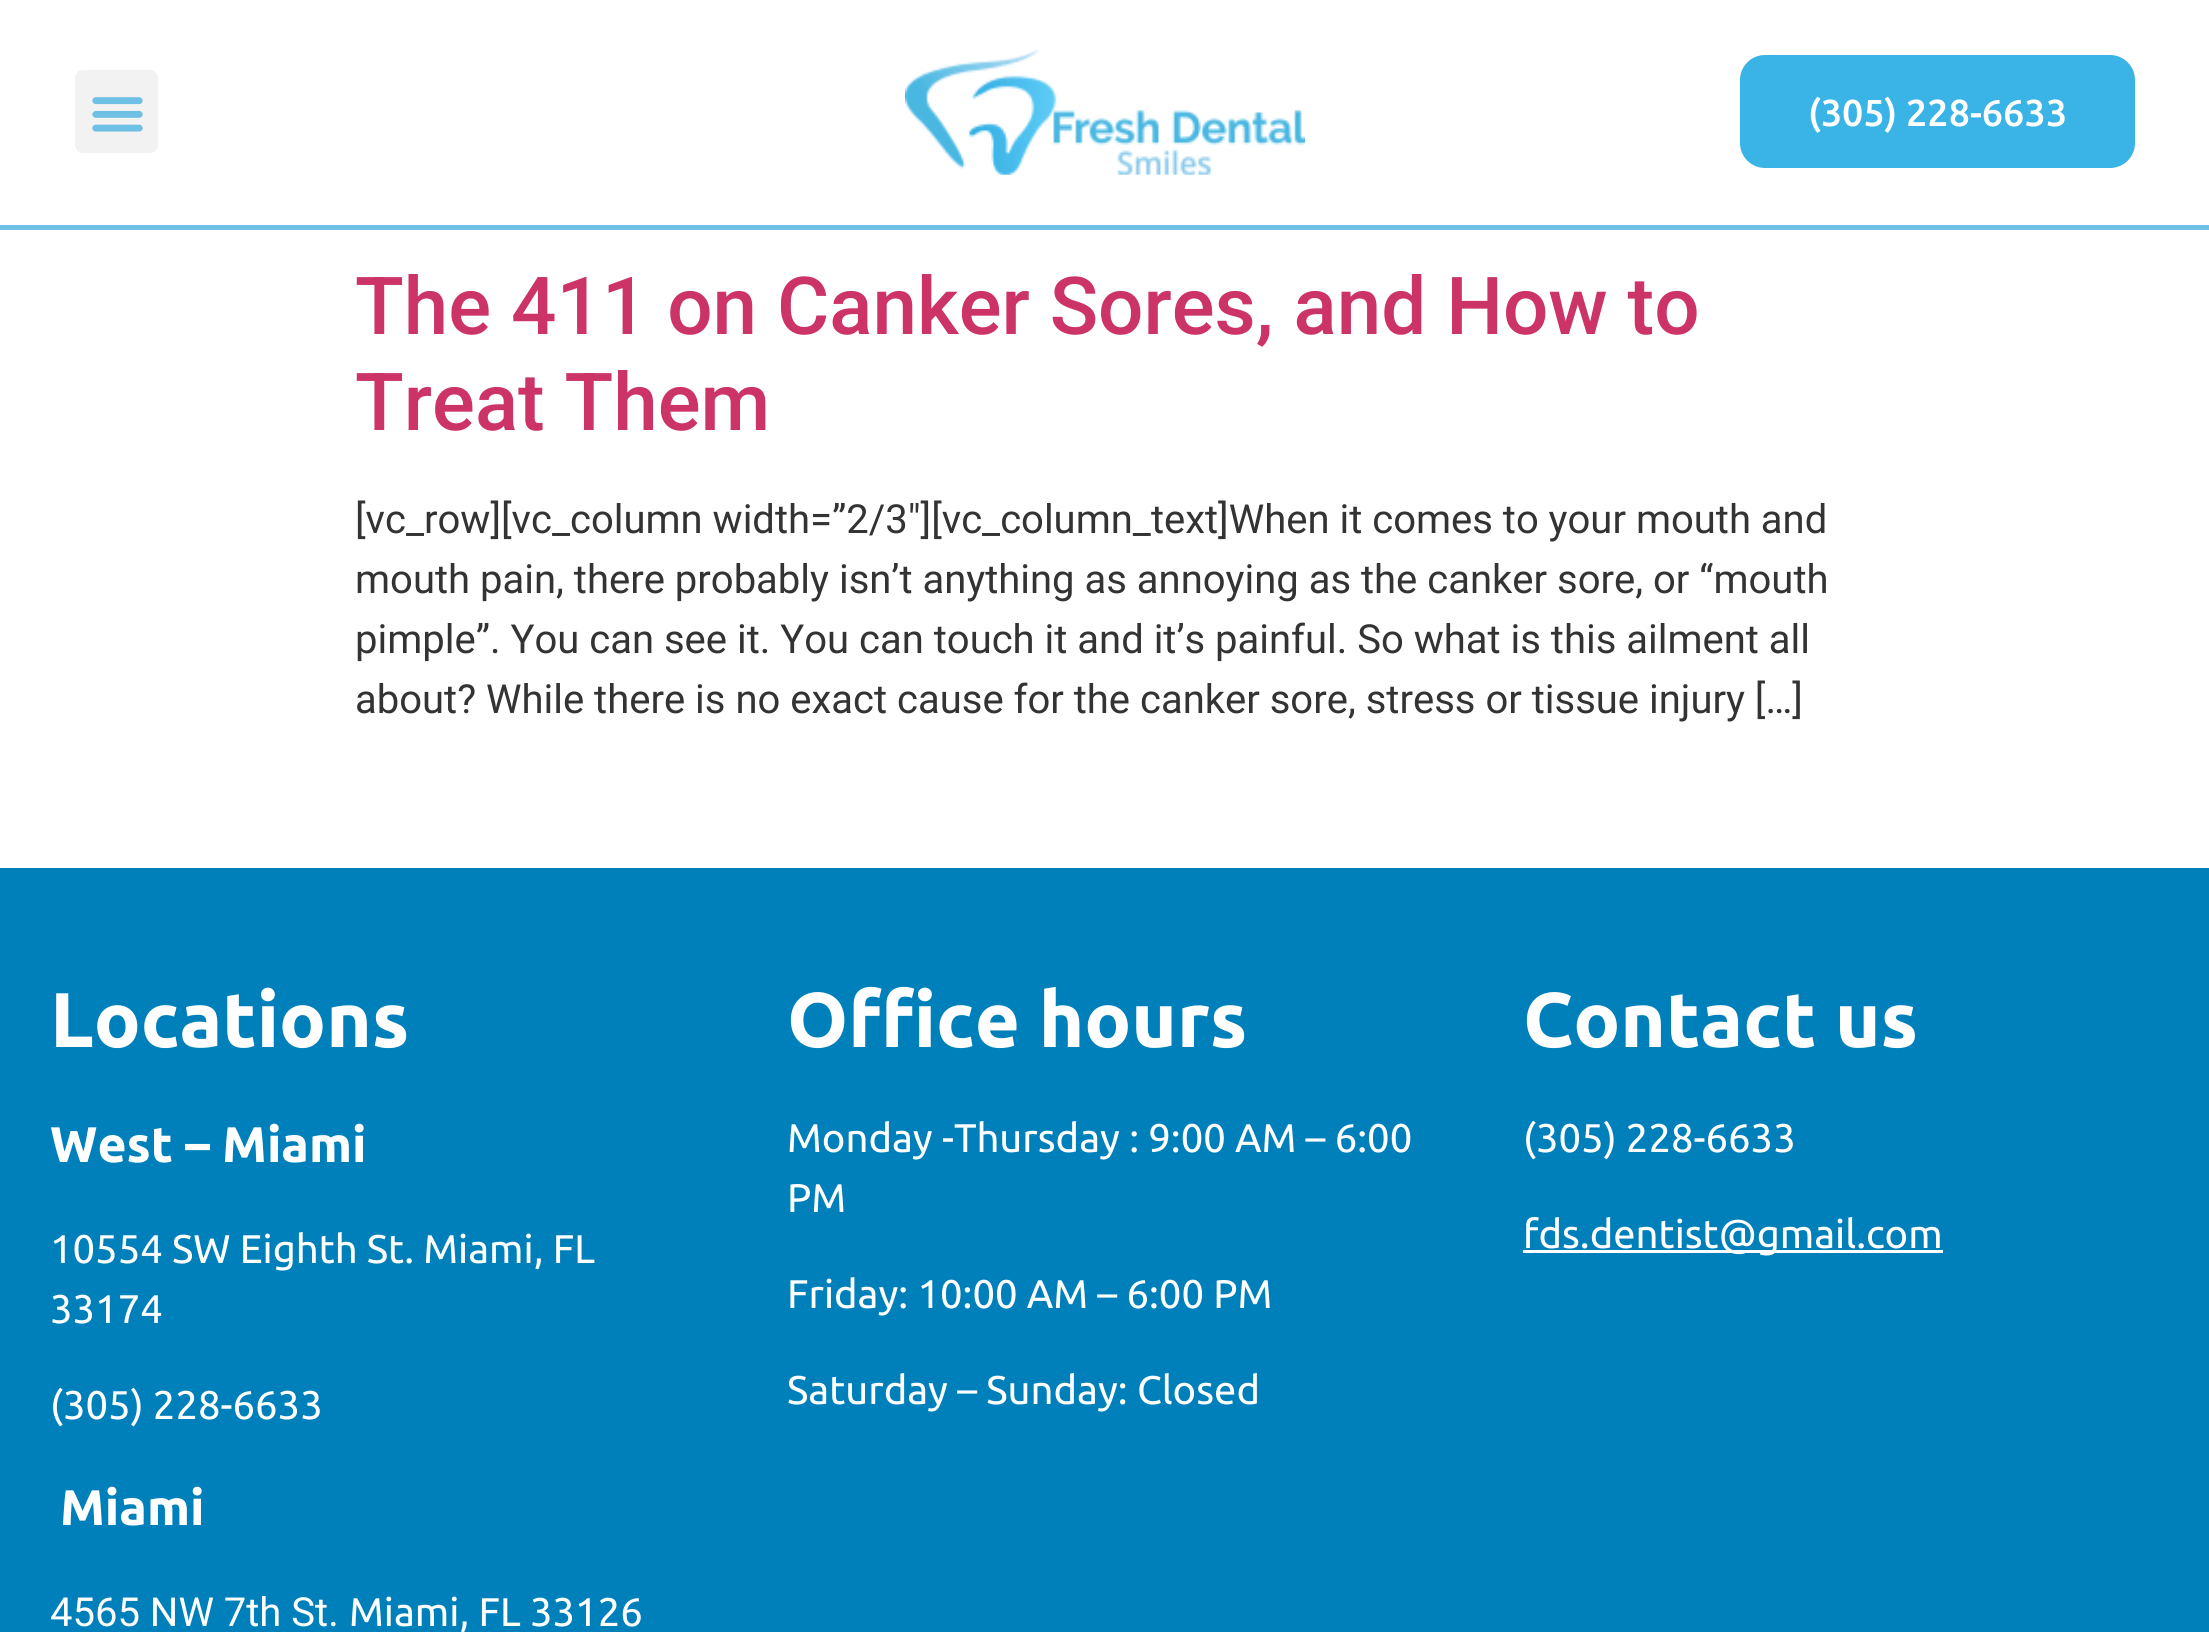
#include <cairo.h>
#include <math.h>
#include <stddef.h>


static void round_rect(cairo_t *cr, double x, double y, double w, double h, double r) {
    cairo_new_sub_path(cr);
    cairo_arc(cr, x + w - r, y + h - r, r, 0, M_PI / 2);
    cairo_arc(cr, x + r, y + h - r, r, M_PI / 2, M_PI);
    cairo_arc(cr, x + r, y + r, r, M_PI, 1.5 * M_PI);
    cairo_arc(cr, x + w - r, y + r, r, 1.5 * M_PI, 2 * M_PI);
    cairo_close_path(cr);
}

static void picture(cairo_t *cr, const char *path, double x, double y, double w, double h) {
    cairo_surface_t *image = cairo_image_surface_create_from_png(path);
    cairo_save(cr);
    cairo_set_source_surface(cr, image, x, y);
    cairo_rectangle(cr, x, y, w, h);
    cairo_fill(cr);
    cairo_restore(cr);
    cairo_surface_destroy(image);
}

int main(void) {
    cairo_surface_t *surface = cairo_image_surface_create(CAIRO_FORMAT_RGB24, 2209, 1632);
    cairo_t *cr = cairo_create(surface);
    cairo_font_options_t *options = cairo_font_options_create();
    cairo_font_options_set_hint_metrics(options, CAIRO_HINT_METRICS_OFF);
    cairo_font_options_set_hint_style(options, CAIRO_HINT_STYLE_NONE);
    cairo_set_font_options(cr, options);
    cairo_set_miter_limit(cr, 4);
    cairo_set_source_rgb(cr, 1, 1, 1);
    cairo_paint(cr);
    cairo_set_source_rgb(cr, 0.431, 0.757, 0.894);
    cairo_rectangle(cr, 0, 225, 2209, 5);
    cairo_fill(cr);
    cairo_set_source_rgb(cr, 0.949, 0.949, 0.949);
    round_rect(cr, 75, 70, 83, 83, 8);
    cairo_fill(cr);
    picture(cr, "img1.png", 92, 97, 51, 35);
    picture(cr, "img2.png", 905, 50, 400, 125);
    cairo_set_source_rgb(cr, 0.227, 0.702, 0.902);
    round_rect(cr, 1744, 59, 387, 105, 21);
    cairo_fill_preserve(cr);
    cairo_set_line_width(cr, 8);
    cairo_stroke(cr);
    cairo_select_font_face(cr, "Ubuntu Medium", CAIRO_FONT_SLANT_NORMAL, CAIRO_FONT_WEIGHT_NORMAL);
    cairo_set_font_size(cr, 37.5);
    cairo_set_source_rgb(cr, 1, 1, 1);
    cairo_move_to(cr, 1808, 126);
    cairo_show_text(cr, "(305) 228-6633");
    cairo_select_font_face(cr, "Roboto Medium", CAIRO_FONT_SLANT_NORMAL, CAIRO_FONT_WEIGHT_NORMAL);
    cairo_set_font_size(cr, 80);
    cairo_set_source_rgb(cr, 0.8, 0.2, 0.4);
    cairo_move_to(cr, 355, 334);
    cairo_show_text(cr, "The 411 on Canker Sores, and How to");
    cairo_move_to(cr, 355, 430);
    cairo_show_text(cr, "Treat Them");
    cairo_select_font_face(cr, "Roboto", CAIRO_FONT_SLANT_NORMAL, CAIRO_FONT_WEIGHT_NORMAL);
    cairo_set_font_size(cr, 40);
    cairo_set_source_rgb(cr, 0.2, 0.2, 0.2);
    cairo_move_to(cr, 355, 533);
    cairo_show_text(cr, "[vc_row][vc_column width=”2/3″][vc_column_text]When it comes to your mouth and");
    cairo_move_to(cr, 355, 593);
    cairo_show_text(cr, "mouth pain, there probably isn’t anything as annoying as the canker sore, or “mouth");
    cairo_move_to(cr, 355, 653);
    cairo_show_text(cr, "pimple”. You can see it. You can touch it and it’s painful. So what is this ailment all");
    cairo_move_to(cr, 355, 713);
    cairo_show_text(cr, "about? While there is no exact cause for the canker sore, stress or tissue injury […]");
    cairo_set_source_rgb(cr, 0, 0.502, 0.733);
    cairo_rectangle(cr, 0, 868, 2209, 764);
    cairo_fill(cr);
    cairo_select_font_face(cr, "Ubuntu", CAIRO_FONT_SLANT_NORMAL, CAIRO_FONT_WEIGHT_BOLD);
    cairo_set_font_size(cr, 77.5);
    cairo_set_source_rgb(cr, 1, 1, 1);
    cairo_move_to(cr, 50, 1047);
    cairo_show_text(cr, "Locations");
    cairo_set_font_size(cr, 50);
    cairo_move_to(cr, 50, 1162);
    cairo_show_text(cr, "West – Miami");
    cairo_select_font_face(cr, "Ubuntu", CAIRO_FONT_SLANT_NORMAL, CAIRO_FONT_WEIGHT_NORMAL);
    cairo_set_font_size(cr, 40);
    cairo_move_to(cr, 50, 1263);
    cairo_show_text(cr, "10554 SW Eighth St. Miami, FL");
    cairo_move_to(cr, 50, 1323);
    cairo_show_text(cr, "33174");
    cairo_move_to(cr, 50, 1419);
    cairo_show_text(cr, "(305) 228-6633");
    cairo_select_font_face(cr, "Ubuntu", CAIRO_FONT_SLANT_NORMAL, CAIRO_FONT_WEIGHT_BOLD);
    cairo_set_font_size(cr, 50);
    cairo_move_to(cr, 60, 1525);
    cairo_show_text(cr, "Miami");
    cairo_select_font_face(cr, "Roboto", CAIRO_FONT_SLANT_NORMAL, CAIRO_FONT_WEIGHT_NORMAL);
    cairo_set_font_size(cr, 40);
    cairo_move_to(cr, 50, 1626);
    cairo_show_text(cr, "4565 NW 7th St.");
    cairo_select_font_face(cr, "Ubuntu", CAIRO_FONT_SLANT_NORMAL, CAIRO_FONT_WEIGHT_NORMAL);
    cairo_move_to(cr, 349, 1626);
    cairo_show_text(cr, "Miami, FL 33126");
    cairo_select_font_face(cr, "Ubuntu", CAIRO_FONT_SLANT_NORMAL, CAIRO_FONT_WEIGHT_BOLD);
    cairo_set_font_size(cr, 77.5);
    cairo_move_to(cr, 787, 1047);
    cairo_show_text(cr, "Office hours");
    cairo_select_font_face(cr, "Ubuntu", CAIRO_FONT_SLANT_NORMAL, CAIRO_FONT_WEIGHT_NORMAL);
    cairo_set_font_size(cr, 40);
    cairo_move_to(cr, 787, 1152);
    cairo_show_text(cr, "Monday -Thursday : 9:00 AM – 6:00");
    cairo_move_to(cr, 787, 1212);
    cairo_show_text(cr, "PM");
    cairo_move_to(cr, 787, 1308);
    cairo_show_text(cr, "Friday: 10:00 AM – 6:00 PM");
    cairo_move_to(cr, 787, 1404);
    cairo_show_text(cr, "Saturday – Sunday: Closed");
    cairo_select_font_face(cr, "Ubuntu", CAIRO_FONT_SLANT_NORMAL, CAIRO_FONT_WEIGHT_BOLD);
    cairo_set_font_size(cr, 77.5);
    cairo_move_to(cr, 1523, 1047);
    cairo_show_text(cr, "Contact us");
    cairo_select_font_face(cr, "Ubuntu", CAIRO_FONT_SLANT_NORMAL, CAIRO_FONT_WEIGHT_NORMAL);
    cairo_set_font_size(cr, 40);
    cairo_move_to(cr, 1523, 1152);
    cairo_show_text(cr, "(305) 228-6633");
    cairo_rectangle(cr, 1523, 1250, 420, 3);
    cairo_fill(cr);
    cairo_move_to(cr, 1523, 1248);
    cairo_show_text(cr, "fds.dentist@gmail.com");
    cairo_surface_write_to_png(surface, "page.png");
    cairo_font_options_destroy(options);
    cairo_destroy(cr);
    cairo_surface_destroy(surface);
    return 0;
}
